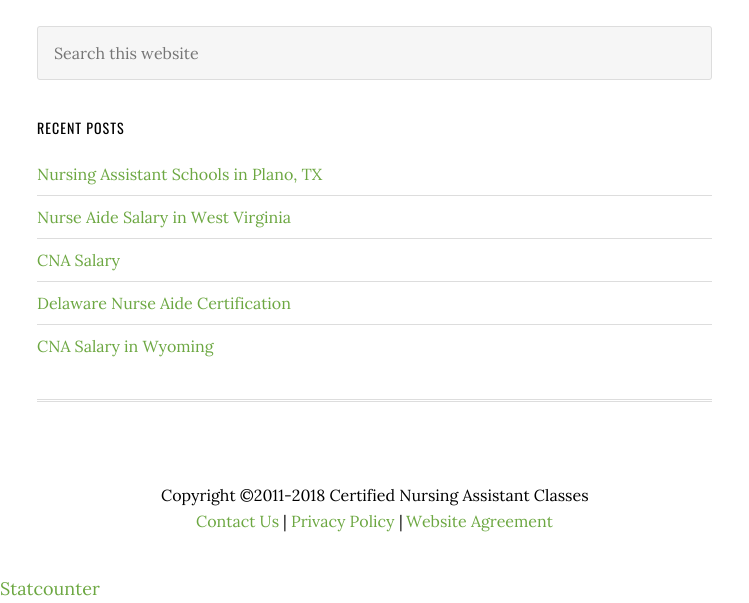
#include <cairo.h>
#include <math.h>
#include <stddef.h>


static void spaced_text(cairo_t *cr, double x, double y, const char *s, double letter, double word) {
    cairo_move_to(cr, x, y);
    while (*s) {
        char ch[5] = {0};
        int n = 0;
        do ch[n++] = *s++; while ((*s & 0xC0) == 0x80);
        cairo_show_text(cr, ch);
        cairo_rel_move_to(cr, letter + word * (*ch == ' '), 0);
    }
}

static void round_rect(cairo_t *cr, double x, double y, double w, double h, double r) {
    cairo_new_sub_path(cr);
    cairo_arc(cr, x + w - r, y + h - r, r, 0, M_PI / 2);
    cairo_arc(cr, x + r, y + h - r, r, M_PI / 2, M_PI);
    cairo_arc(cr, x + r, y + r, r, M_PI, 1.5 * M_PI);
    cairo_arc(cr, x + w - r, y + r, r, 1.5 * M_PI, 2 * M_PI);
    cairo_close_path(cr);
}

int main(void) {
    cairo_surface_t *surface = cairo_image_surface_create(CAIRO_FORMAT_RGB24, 749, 603);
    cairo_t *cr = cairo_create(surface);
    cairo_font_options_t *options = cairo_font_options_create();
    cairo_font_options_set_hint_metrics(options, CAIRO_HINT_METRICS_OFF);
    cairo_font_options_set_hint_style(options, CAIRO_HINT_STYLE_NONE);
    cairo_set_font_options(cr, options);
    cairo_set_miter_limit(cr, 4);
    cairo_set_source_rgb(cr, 1, 1, 1);
    cairo_paint(cr);
    cairo_set_source_rgb(cr, 0.867, 0.867, 0.867);
    cairo_rectangle(cr, 37, 399, 675, 1);
    cairo_fill(cr);
    cairo_rectangle(cr, 37, 401, 675, 1);
    cairo_fill(cr);
    cairo_set_source_rgb(cr, 0.961, 0.961, 0.961);
    round_rect(cr, 37.5, 26.5, 674, 53, 2.5);
    cairo_fill_preserve(cr);
    cairo_set_source_rgb(cr, 0.867, 0.867, 0.867);
    cairo_set_line_width(cr, 1);
    cairo_stroke(cr);
    cairo_select_font_face(cr, "Lora", CAIRO_FONT_SLANT_NORMAL, CAIRO_FONT_WEIGHT_NORMAL);
    cairo_set_font_size(cr, 16);
    cairo_set_source_rgb(cr, 0.459, 0.459, 0.459);
    cairo_move_to(cr, 54, 59);
    cairo_show_text(cr, "Search this website");
    cairo_select_font_face(cr, "Oswald", CAIRO_FONT_SLANT_NORMAL, CAIRO_FONT_WEIGHT_NORMAL);
    cairo_set_font_size(cr, 14);
    cairo_set_source_rgb(cr, 0, 0, 0);
    spaced_text(cr, 37, 134, "RECENT POSTS", 1, 0);
    cairo_set_source_rgb(cr, 0.867, 0.867, 0.867);
    cairo_rectangle(cr, 37, 195, 675, 1);
    cairo_fill(cr);
    cairo_select_font_face(cr, "Lora", CAIRO_FONT_SLANT_NORMAL, CAIRO_FONT_WEIGHT_NORMAL);
    cairo_set_font_size(cr, 16);
    cairo_set_source_rgb(cr, 0.424, 0.655, 0.255);
    cairo_move_to(cr, 37, 180);
    cairo_show_text(cr, "Nursing Assistant Schools in Plano, TX");
    cairo_set_source_rgb(cr, 0.867, 0.867, 0.867);
    cairo_rectangle(cr, 37, 238, 675, 1);
    cairo_fill(cr);
    cairo_set_source_rgb(cr, 0.424, 0.655, 0.255);
    cairo_move_to(cr, 37, 223);
    cairo_show_text(cr, "Nurse Aide Salary in West Virginia");
    cairo_set_source_rgb(cr, 0.867, 0.867, 0.867);
    cairo_rectangle(cr, 37, 281, 675, 1);
    cairo_fill(cr);
    cairo_set_source_rgb(cr, 0.424, 0.655, 0.255);
    cairo_move_to(cr, 37, 266);
    cairo_show_text(cr, "CNA Salary");
    cairo_set_source_rgb(cr, 0.867, 0.867, 0.867);
    cairo_rectangle(cr, 37, 324, 675, 1);
    cairo_fill(cr);
    cairo_set_source_rgb(cr, 0.424, 0.655, 0.255);
    cairo_move_to(cr, 37, 309);
    cairo_show_text(cr, "Delaware Nurse Aide Certification");
    cairo_move_to(cr, 37, 352);
    cairo_show_text(cr, "CNA Salary in Wyoming");
    cairo_set_source_rgb(cr, 0, 0, 0);
    cairo_move_to(cr, 161, 501);
    cairo_show_text(cr, "Copyright ©2011-2018 Certified Nursing Assistant Classes");
    cairo_set_source_rgb(cr, 0.424, 0.655, 0.255);
    cairo_move_to(cr, 196, 527);
    cairo_show_text(cr, "Contact Us");
    cairo_set_source_rgb(cr, 0, 0, 0);
    cairo_move_to(cr, 283, 527);
    cairo_show_text(cr, "|");
    cairo_set_source_rgb(cr, 0.424, 0.655, 0.255);
    cairo_move_to(cr, 291, 527);
    cairo_show_text(cr, "Privacy Policy");
    cairo_set_source_rgb(cr, 0, 0, 0);
    cairo_move_to(cr, 399, 527);
    cairo_show_text(cr, "|");
    cairo_set_source_rgb(cr, 0.424, 0.655, 0.255);
    cairo_move_to(cr, 406, 527);
    cairo_show_text(cr, "Website Agreement");
    cairo_set_font_size(cr, 18);
    cairo_move_to(cr, 0, 595);
    cairo_show_text(cr, "Statcounter");
    cairo_surface_write_to_png(surface, "page.png");
    cairo_font_options_destroy(options);
    cairo_destroy(cr);
    cairo_surface_destroy(surface);
    return 0;
}
